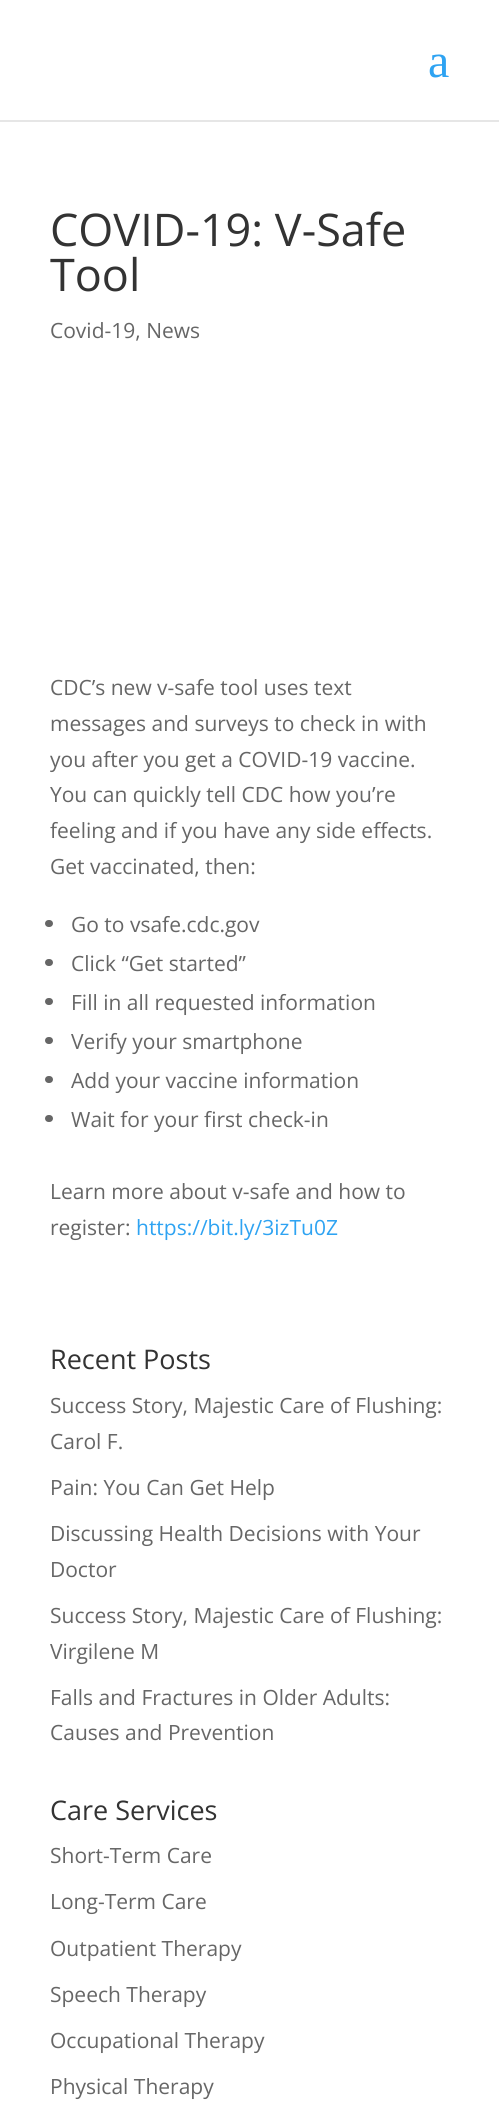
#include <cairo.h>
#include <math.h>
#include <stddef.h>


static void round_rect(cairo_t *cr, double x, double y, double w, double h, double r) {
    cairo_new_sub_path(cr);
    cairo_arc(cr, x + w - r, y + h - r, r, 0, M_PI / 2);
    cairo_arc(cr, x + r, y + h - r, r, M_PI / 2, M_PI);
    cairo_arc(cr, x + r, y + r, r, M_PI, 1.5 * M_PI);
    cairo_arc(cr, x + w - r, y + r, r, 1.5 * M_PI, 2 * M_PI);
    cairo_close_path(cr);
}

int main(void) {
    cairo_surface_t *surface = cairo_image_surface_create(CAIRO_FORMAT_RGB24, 499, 2124);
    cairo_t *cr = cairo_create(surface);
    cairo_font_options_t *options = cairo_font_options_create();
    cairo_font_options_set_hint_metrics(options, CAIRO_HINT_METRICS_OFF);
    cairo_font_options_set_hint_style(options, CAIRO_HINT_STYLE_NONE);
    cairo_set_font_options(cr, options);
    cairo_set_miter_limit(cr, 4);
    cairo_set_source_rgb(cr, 1, 1, 1);
    cairo_paint(cr);
    cairo_set_source_rgb(cr, 0.902, 0.902, 0.902);
    cairo_new_path(cr);
    cairo_move_to(cr, 0, 120);
    cairo_line_to(cr, 0, 122);
    cairo_line_to(cr, 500, 122);
    cairo_line_to(cr, 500, 2);
    cairo_line_to(cr, 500, 120);
    cairo_close_path(cr);
    cairo_fill(cr);
    cairo_select_font_face(cr, "Liberation Serif", CAIRO_FONT_SLANT_NORMAL, CAIRO_FONT_WEIGHT_NORMAL);
    cairo_set_font_size(cr, 48);
    cairo_set_source_rgb(cr, 0.18, 0.639, 0.949);
    cairo_move_to(cr, 428, 77);
    cairo_show_text(cr, "a");
    cairo_select_font_face(cr, "Open Sans", CAIRO_FONT_SLANT_NORMAL, CAIRO_FONT_WEIGHT_NORMAL);
    cairo_set_font_size(cr, 45);
    cairo_set_source_rgb(cr, 0.2, 0.2, 0.2);
    cairo_move_to(cr, 50, 246);
    cairo_show_text(cr, "COVID-19: V-Safe");
    cairo_move_to(cr, 50, 291);
    cairo_show_text(cr, "Tool");
    cairo_set_font_size(cr, 21);
    cairo_set_source_rgb(cr, 0.4, 0.4, 0.4);
    cairo_move_to(cr, 50, 338);
    cairo_show_text(cr, "Covid-19, News");
    cairo_move_to(cr, 50, 695);
    cairo_show_text(cr, "CDC’s new v-safe tool uses text");
    cairo_move_to(cr, 50, 731);
    cairo_show_text(cr, "messages and surveys to check in with");
    cairo_move_to(cr, 50, 767);
    cairo_show_text(cr, "you after you get a COVID-19 vaccine.");
    cairo_move_to(cr, 50, 802);
    cairo_show_text(cr, "You can quickly tell CDC how you’re");
    cairo_move_to(cr, 50, 838);
    cairo_show_text(cr, "feeling and if you have any side effects.");
    cairo_move_to(cr, 50, 874);
    cairo_show_text(cr, "Get vaccinated, then:");
    round_rect(cr, 45, 920, 8, 7, 3.5);
    cairo_fill(cr);
    cairo_move_to(cr, 71, 932);
    cairo_show_text(cr, "Go to vsafe.cdc.gov");
    round_rect(cr, 45, 959, 8, 7, 3.5);
    cairo_fill(cr);
    cairo_move_to(cr, 71, 971);
    cairo_show_text(cr, "Click “Get started”");
    round_rect(cr, 45, 998, 8, 7, 3.5);
    cairo_fill(cr);
    cairo_move_to(cr, 71, 1010);
    cairo_show_text(cr, "Fill in all requested information");
    round_rect(cr, 45, 1037, 8, 7, 3.5);
    cairo_fill(cr);
    cairo_move_to(cr, 71, 1049);
    cairo_show_text(cr, "Verify your smartphone");
    round_rect(cr, 45, 1076, 8, 7, 3.5);
    cairo_fill(cr);
    cairo_move_to(cr, 71, 1088);
    cairo_show_text(cr, "Add your vaccine information");
    round_rect(cr, 45, 1115, 8, 7, 3.5);
    cairo_fill(cr);
    cairo_move_to(cr, 71, 1127);
    cairo_show_text(cr, "Wait for your first check-in");
    cairo_move_to(cr, 50, 1199);
    cairo_show_text(cr, "Learn more about v-safe and how to");
    cairo_move_to(cr, 50, 1235);
    cairo_show_text(cr, "register:");
    cairo_set_source_rgb(cr, 0.18, 0.639, 0.949);
    cairo_move_to(cr, 136, 1235);
    cairo_show_text(cr, "https://bit.ly/3izTu0Z");
    cairo_set_font_size(cr, 27);
    cairo_set_source_rgb(cr, 0.2, 0.2, 0.2);
    cairo_move_to(cr, 50, 1369);
    cairo_show_text(cr, "Recent Posts");
    cairo_set_font_size(cr, 21);
    cairo_set_source_rgb(cr, 0.4, 0.4, 0.4);
    cairo_move_to(cr, 50, 1413);
    cairo_show_text(cr, "Success Story, Majestic Care of Flushing:");
    cairo_move_to(cr, 50, 1449);
    cairo_show_text(cr, "Carol F.");
    cairo_move_to(cr, 50, 1495);
    cairo_show_text(cr, "Pain: You Can Get Help");
    cairo_move_to(cr, 50, 1541);
    cairo_show_text(cr, "Discussing Health Decisions with Your");
    cairo_move_to(cr, 50, 1577);
    cairo_show_text(cr, "Doctor");
    cairo_move_to(cr, 50, 1623);
    cairo_show_text(cr, "Success Story, Majestic Care of Flushing:");
    cairo_move_to(cr, 50, 1659);
    cairo_show_text(cr, "Virgilene M");
    cairo_move_to(cr, 50, 1705);
    cairo_show_text(cr, "Falls and Fractures in Older Adults:");
    cairo_move_to(cr, 50, 1740);
    cairo_show_text(cr, "Causes and Prevention");
    cairo_set_font_size(cr, 27);
    cairo_set_source_rgb(cr, 0.2, 0.2, 0.2);
    cairo_move_to(cr, 50, 1820);
    cairo_show_text(cr, "Care Services");
    cairo_set_font_size(cr, 21);
    cairo_set_source_rgb(cr, 0.4, 0.4, 0.4);
    cairo_move_to(cr, 50, 1863);
    cairo_show_text(cr, "Short-Term Care");
    cairo_move_to(cr, 50, 1909);
    cairo_show_text(cr, "Long-Term Care");
    cairo_move_to(cr, 50, 1956);
    cairo_show_text(cr, "Outpatient Therapy");
    cairo_move_to(cr, 50, 2002);
    cairo_show_text(cr, "Speech Therapy");
    cairo_move_to(cr, 50, 2048);
    cairo_show_text(cr, "Occupational Therapy");
    cairo_move_to(cr, 50, 2094);
    cairo_show_text(cr, "Physical Therapy");
    cairo_surface_write_to_png(surface, "page.png");
    cairo_font_options_destroy(options);
    cairo_destroy(cr);
    cairo_surface_destroy(surface);
    return 0;
}
